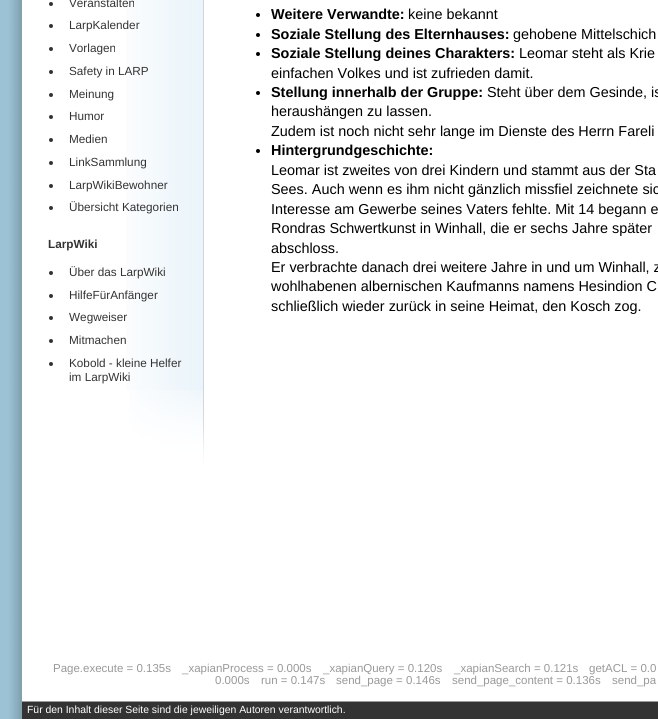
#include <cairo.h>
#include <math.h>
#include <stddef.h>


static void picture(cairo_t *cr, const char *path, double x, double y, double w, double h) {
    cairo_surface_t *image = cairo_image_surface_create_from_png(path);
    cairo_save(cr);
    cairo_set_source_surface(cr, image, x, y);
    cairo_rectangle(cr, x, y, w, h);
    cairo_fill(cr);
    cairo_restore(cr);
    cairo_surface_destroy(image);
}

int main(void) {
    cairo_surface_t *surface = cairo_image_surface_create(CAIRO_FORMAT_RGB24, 658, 719);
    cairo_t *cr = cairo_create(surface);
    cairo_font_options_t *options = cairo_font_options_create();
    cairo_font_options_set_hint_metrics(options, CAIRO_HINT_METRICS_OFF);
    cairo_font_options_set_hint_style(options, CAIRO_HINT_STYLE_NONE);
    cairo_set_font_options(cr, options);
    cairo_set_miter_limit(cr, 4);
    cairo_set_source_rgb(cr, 0.608, 0.765, 0.835);
    cairo_paint(cr);
    picture(cr, "img1.png", 9, 0, 649, 719);
    picture(cr, "img2.png", 126, 0, 78, 390);
    cairo_set_source_rgb(cr, 0.2, 0.2, 0.2);
    cairo_arc(cr, 51, 4, 2, 0, 2 * M_PI);
    cairo_fill(cr);
    cairo_select_font_face(cr, "Liberation Sans", CAIRO_FONT_SLANT_NORMAL, CAIRO_FONT_WEIGHT_NORMAL);
    cairo_set_font_size(cr, 11.75);
    cairo_move_to(cr, 69, 7);
    cairo_show_text(cr, "Veranstalten");
    cairo_new_path(cr);
    cairo_arc(cr, 51, 26, 2, 0, 2 * M_PI);
    cairo_fill(cr);
    cairo_move_to(cr, 69, 29);
    cairo_show_text(cr, "LarpKalender");
    cairo_new_path(cr);
    cairo_arc(cr, 51, 49, 2, 0, 2 * M_PI);
    cairo_fill(cr);
    cairo_move_to(cr, 69, 52);
    cairo_show_text(cr, "Vorlagen");
    cairo_new_path(cr);
    cairo_arc(cr, 51, 72, 2, 0, 2 * M_PI);
    cairo_fill(cr);
    cairo_move_to(cr, 69, 75);
    cairo_show_text(cr, "Safety in LARP");
    cairo_new_path(cr);
    cairo_arc(cr, 51, 95, 2, 0, 2 * M_PI);
    cairo_fill(cr);
    cairo_move_to(cr, 69, 98);
    cairo_show_text(cr, "Meinung");
    cairo_new_path(cr);
    cairo_arc(cr, 51, 117, 2, 0, 2 * M_PI);
    cairo_fill(cr);
    cairo_move_to(cr, 69, 120);
    cairo_show_text(cr, "Humor");
    cairo_new_path(cr);
    cairo_arc(cr, 51, 140, 2, 0, 2 * M_PI);
    cairo_fill(cr);
    cairo_move_to(cr, 69, 143);
    cairo_show_text(cr, "Medien");
    cairo_new_path(cr);
    cairo_arc(cr, 51, 163, 2, 0, 2 * M_PI);
    cairo_fill(cr);
    cairo_move_to(cr, 69, 166);
    cairo_show_text(cr, "LinkSammlung");
    cairo_new_path(cr);
    cairo_arc(cr, 51, 186, 2, 0, 2 * M_PI);
    cairo_fill(cr);
    cairo_move_to(cr, 69, 189);
    cairo_show_text(cr, "LarpWikiBewohner");
    cairo_new_path(cr);
    cairo_arc(cr, 51, 208, 2, 0, 2 * M_PI);
    cairo_fill(cr);
    cairo_move_to(cr, 69, 211);
    cairo_show_text(cr, "Übersicht Kategorien");
    cairo_select_font_face(cr, "Liberation Sans", CAIRO_FONT_SLANT_NORMAL, CAIRO_FONT_WEIGHT_BOLD);
    cairo_move_to(cr, 48, 248);
    cairo_show_text(cr, "LarpWiki");
    cairo_new_path(cr);
    cairo_arc(cr, 51, 273, 2, 0, 2 * M_PI);
    cairo_fill(cr);
    cairo_select_font_face(cr, "Liberation Sans", CAIRO_FONT_SLANT_NORMAL, CAIRO_FONT_WEIGHT_NORMAL);
    cairo_move_to(cr, 69, 276);
    cairo_show_text(cr, "Über das LarpWiki");
    cairo_new_path(cr);
    cairo_arc(cr, 51, 296, 2, 0, 2 * M_PI);
    cairo_fill(cr);
    cairo_move_to(cr, 69, 299);
    cairo_show_text(cr, "HilfeFürAnfänger");
    cairo_new_path(cr);
    cairo_arc(cr, 51, 318, 2, 0, 2 * M_PI);
    cairo_fill(cr);
    cairo_move_to(cr, 69, 321);
    cairo_show_text(cr, "Wegweiser");
    cairo_new_path(cr);
    cairo_arc(cr, 51, 341, 2, 0, 2 * M_PI);
    cairo_fill(cr);
    cairo_move_to(cr, 69, 344);
    cairo_show_text(cr, "Mitmachen");
    cairo_new_path(cr);
    cairo_arc(cr, 51, 364, 2, 0, 2 * M_PI);
    cairo_fill(cr);
    cairo_move_to(cr, 69, 367);
    cairo_show_text(cr, "Kobold - kleine Helfer");
    cairo_move_to(cr, 69, 381);
    cairo_show_text(cr, "im LarpWiki");
    picture(cr, "img3.png", 129, 390, 75, 74);
    cairo_set_source_rgb(cr, 0, 0, 0);
    cairo_arc(cr, 258, 15, 2, 0, 2 * M_PI);
    cairo_fill(cr);
    cairo_select_font_face(cr, "Liberation Sans", CAIRO_FONT_SLANT_NORMAL, CAIRO_FONT_WEIGHT_BOLD);
    cairo_set_font_size(cr, 14.4);
    cairo_move_to(cr, 271, 19);
    cairo_show_text(cr, "Weitere Verwandte:");
    cairo_select_font_face(cr, "Liberation Sans", CAIRO_FONT_SLANT_NORMAL, CAIRO_FONT_WEIGHT_NORMAL);
    cairo_move_to(cr, 408, 19);
    cairo_show_text(cr, "keine bekannt");
    cairo_new_path(cr);
    cairo_arc(cr, 258, 35, 2, 0, 2 * M_PI);
    cairo_fill(cr);
    cairo_select_font_face(cr, "Liberation Sans", CAIRO_FONT_SLANT_NORMAL, CAIRO_FONT_WEIGHT_BOLD);
    cairo_move_to(cr, 271, 39);
    cairo_show_text(cr, "Soziale Stellung des Elternhauses:");
    cairo_select_font_face(cr, "Liberation Sans", CAIRO_FONT_SLANT_NORMAL, CAIRO_FONT_WEIGHT_NORMAL);
    cairo_move_to(cr, 513, 39);
    cairo_show_text(cr, "gehobene Mittelschich");
    cairo_new_path(cr);
    cairo_arc(cr, 258, 54, 2, 0, 2 * M_PI);
    cairo_fill(cr);
    cairo_select_font_face(cr, "Liberation Sans", CAIRO_FONT_SLANT_NORMAL, CAIRO_FONT_WEIGHT_BOLD);
    cairo_move_to(cr, 271, 58);
    cairo_show_text(cr, "Soziale Stellung deines Charakters:");
    cairo_select_font_face(cr, "Liberation Sans", CAIRO_FONT_SLANT_NORMAL, CAIRO_FONT_WEIGHT_NORMAL);
    cairo_move_to(cr, 519, 58);
    cairo_show_text(cr, "Leomar steht als Krie");
    cairo_move_to(cr, 271, 78);
    cairo_show_text(cr, "einfachen Volkes und ist zufrieden damit.");
    cairo_new_path(cr);
    cairo_arc(cr, 258, 93, 2, 0, 2 * M_PI);
    cairo_fill(cr);
    cairo_select_font_face(cr, "Liberation Sans", CAIRO_FONT_SLANT_NORMAL, CAIRO_FONT_WEIGHT_BOLD);
    cairo_move_to(cr, 271, 97);
    cairo_show_text(cr, "Stellung innerhalb der Gruppe:");
    cairo_select_font_face(cr, "Liberation Sans", CAIRO_FONT_SLANT_NORMAL, CAIRO_FONT_WEIGHT_NORMAL);
    cairo_move_to(cr, 487, 97);
    cairo_show_text(cr, "Steht über dem Gesinde, is");
    cairo_move_to(cr, 271, 116);
    cairo_show_text(cr, "heraushängen zu lassen.");
    cairo_move_to(cr, 271, 136);
    cairo_show_text(cr, "Zudem ist noch nicht sehr lange im Dienste des Herrn Fareli");
    cairo_new_path(cr);
    cairo_arc(cr, 258, 151, 2, 0, 2 * M_PI);
    cairo_fill(cr);
    cairo_select_font_face(cr, "Liberation Sans", CAIRO_FONT_SLANT_NORMAL, CAIRO_FONT_WEIGHT_BOLD);
    cairo_move_to(cr, 271, 155);
    cairo_show_text(cr, "Hintergrundgeschichte:");
    cairo_select_font_face(cr, "Liberation Sans", CAIRO_FONT_SLANT_NORMAL, CAIRO_FONT_WEIGHT_NORMAL);
    cairo_move_to(cr, 271, 175);
    cairo_show_text(cr, "Leomar ist zweites von drei Kindern und stammt aus der Sta");
    cairo_move_to(cr, 271, 194);
    cairo_show_text(cr, "Sees. Auch wenn es ihm nicht gänzlich missfiel zeichnete sic");
    cairo_move_to(cr, 271, 214);
    cairo_show_text(cr, "Interesse am Gewerbe seines Vaters fehlte. Mit 14 begann e");
    cairo_move_to(cr, 271, 233);
    cairo_show_text(cr, "Rondras Schwertkunst in Winhall, die er sechs Jahre später");
    cairo_move_to(cr, 271, 253);
    cairo_show_text(cr, "abschloss.");
    cairo_move_to(cr, 271, 272);
    cairo_show_text(cr, "Er verbrachte danach drei weitere Jahre in und um Winhall, z");
    cairo_move_to(cr, 271, 291);
    cairo_show_text(cr, "wohlhabenen albernischen Kaufmanns namens Hesindion C");
    cairo_move_to(cr, 271, 311);
    cairo_show_text(cr, "schließlich wieder zurück in seine Heimat, den Kosch zog.");
    cairo_set_font_size(cr, 11.5);
    cairo_set_source_rgb(cr, 0.6, 0.6, 0.6);
    cairo_move_to(cr, 53, 672);
    cairo_show_text(cr, "Page.execute = 0.135s");
    cairo_move_to(cr, 182, 672);
    cairo_show_text(cr, "_xapianProcess = 0.000s");
    cairo_move_to(cr, 323, 672);
    cairo_show_text(cr, "_xapianQuery = 0.120s");
    cairo_move_to(cr, 454, 672);
    cairo_show_text(cr, "_xapianSearch = 0.121s");
    cairo_move_to(cr, 589, 672);
    cairo_show_text(cr, "getACL = 0.0");
    cairo_move_to(cr, 215, 684);
    cairo_show_text(cr, "0.000s");
    cairo_move_to(cr, 261, 684);
    cairo_show_text(cr, "run = 0.147s");
    cairo_move_to(cr, 336, 684);
    cairo_show_text(cr, "send_page = 0.146s");
    cairo_move_to(cr, 452, 684);
    cairo_show_text(cr, "send_page_content = 0.136s");
    cairo_move_to(cr, 612, 684);
    cairo_show_text(cr, "send_pa");
    cairo_set_source_rgb(cr, 0.2, 0.2, 0.2);
    cairo_rectangle(cr, 22, 702, 636, 17);
    cairo_fill(cr);
    cairo_set_source_rgb(cr, 0.6, 0.6, 0.6);
    cairo_rectangle(cr, 22, 701, 636, 1);
    cairo_fill(cr);
    cairo_set_font_size(cr, 10.4);
    cairo_set_source_rgb(cr, 1, 1, 1);
    cairo_move_to(cr, 27, 713);
    cairo_show_text(cr, "Für den Inhalt dieser Seite sind die jeweiligen Autoren verantwortlich.");
    cairo_surface_write_to_png(surface, "page.png");
    cairo_font_options_destroy(options);
    cairo_destroy(cr);
    cairo_surface_destroy(surface);
    return 0;
}
